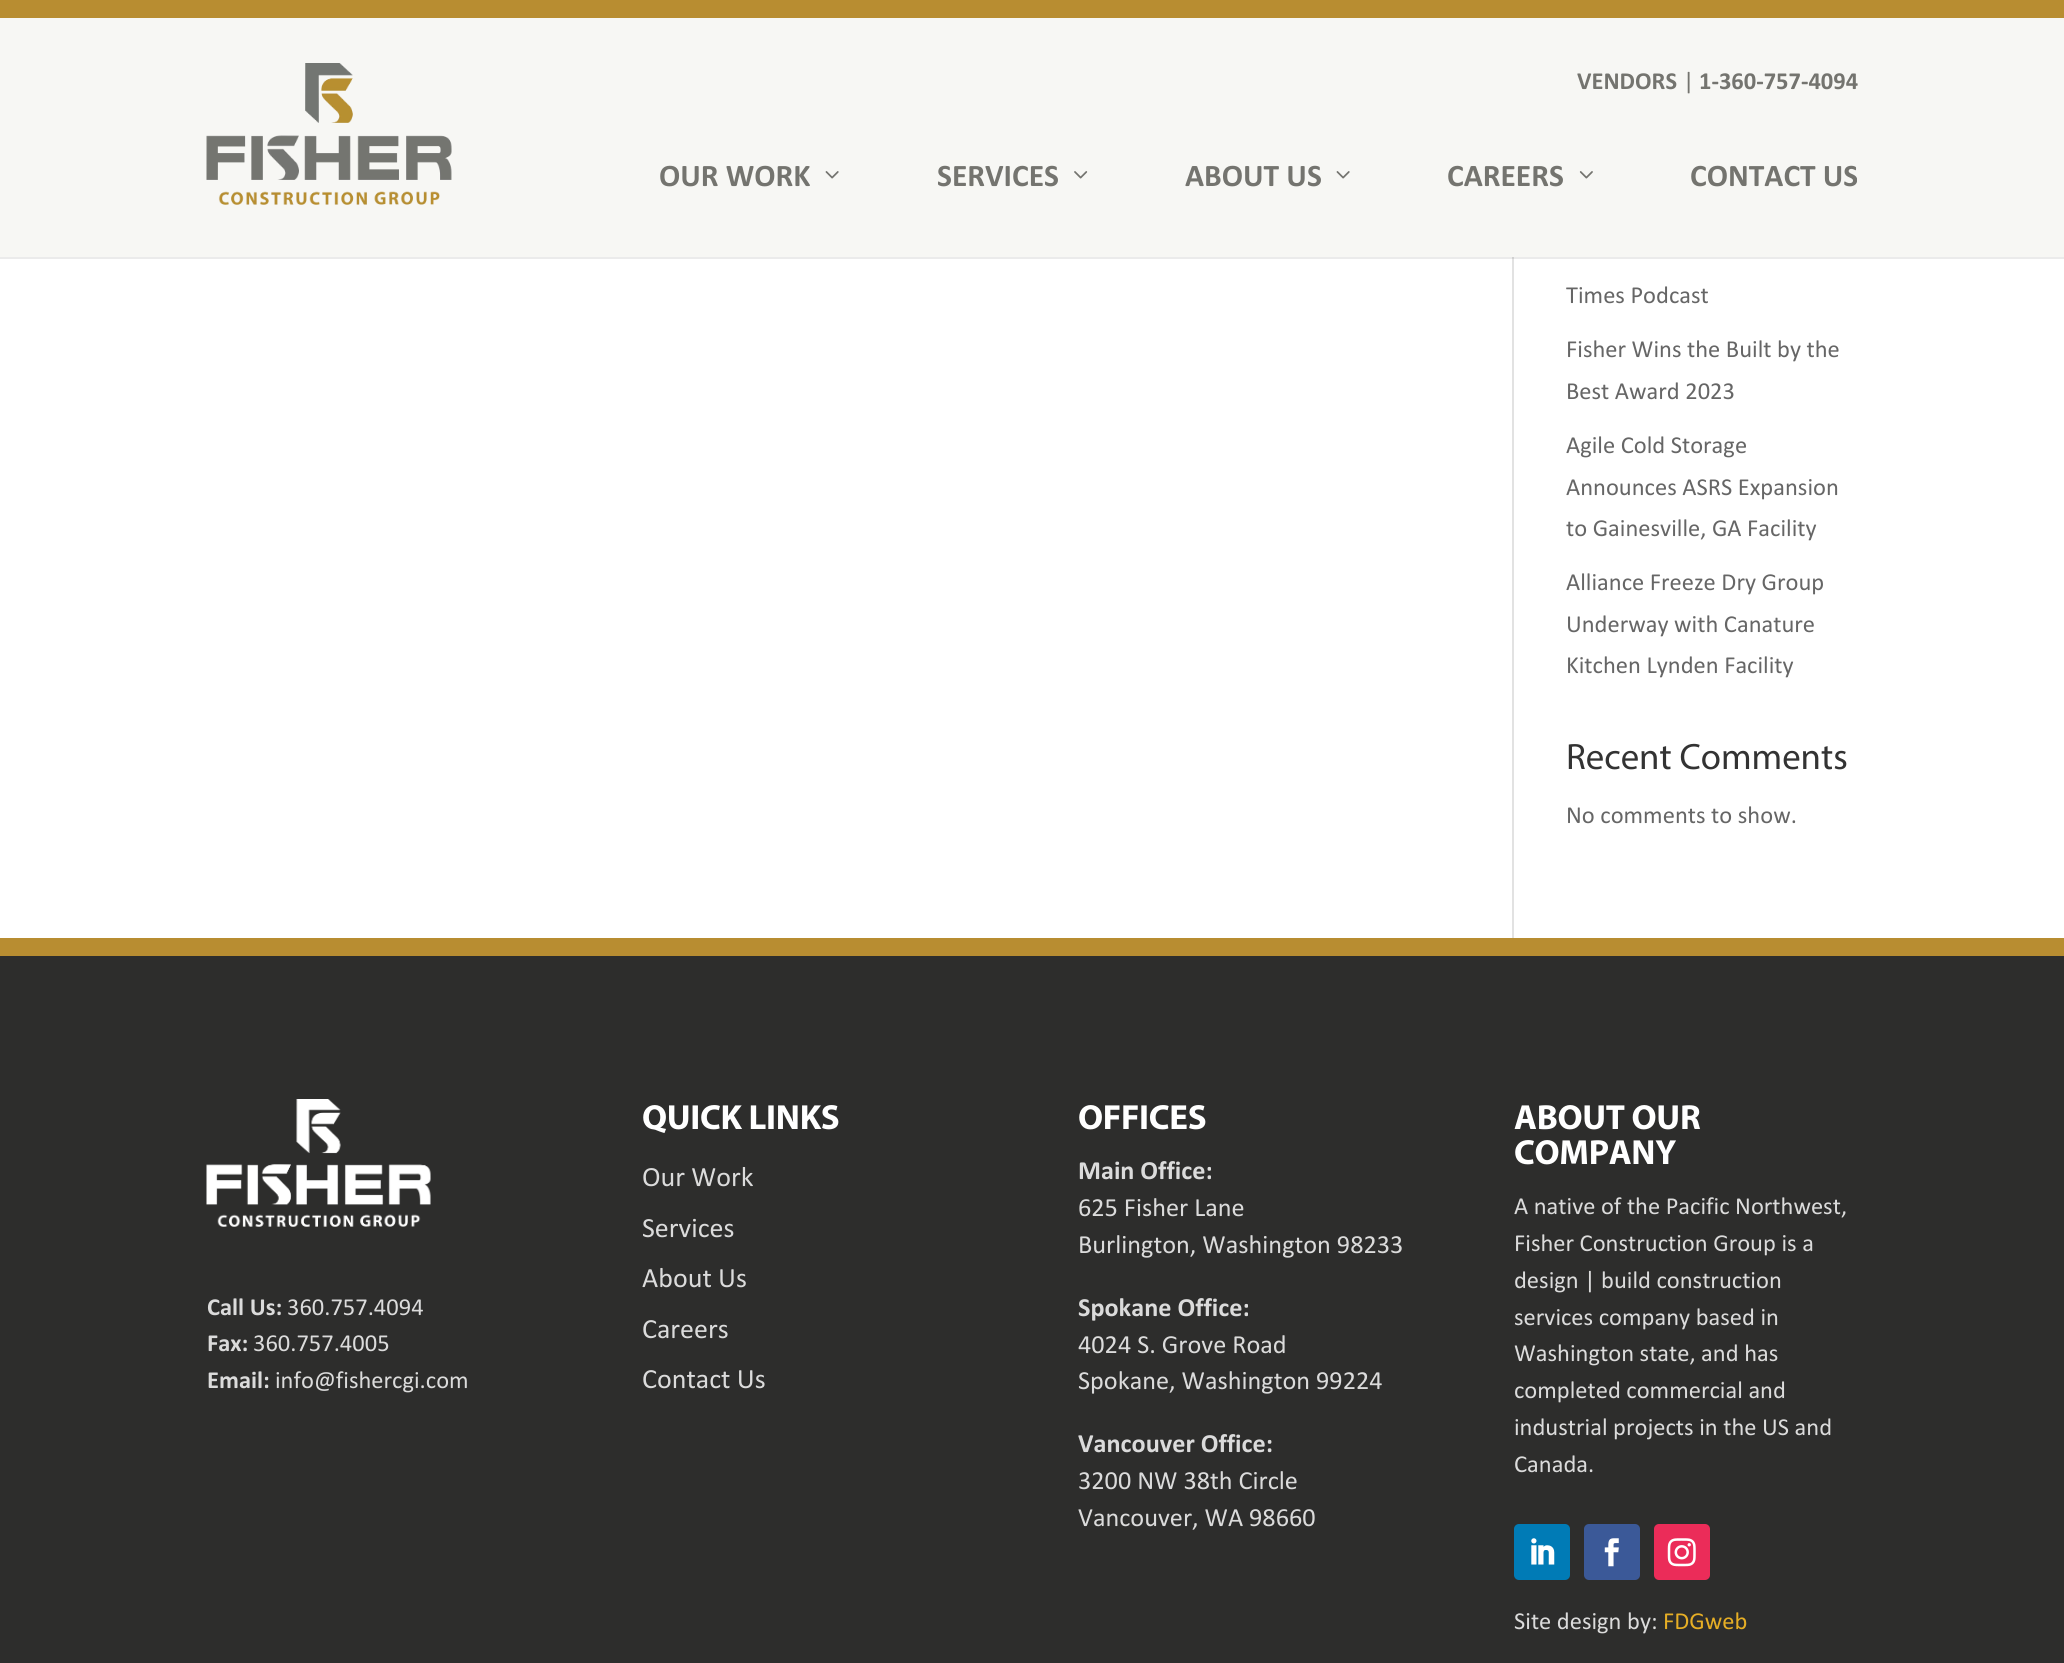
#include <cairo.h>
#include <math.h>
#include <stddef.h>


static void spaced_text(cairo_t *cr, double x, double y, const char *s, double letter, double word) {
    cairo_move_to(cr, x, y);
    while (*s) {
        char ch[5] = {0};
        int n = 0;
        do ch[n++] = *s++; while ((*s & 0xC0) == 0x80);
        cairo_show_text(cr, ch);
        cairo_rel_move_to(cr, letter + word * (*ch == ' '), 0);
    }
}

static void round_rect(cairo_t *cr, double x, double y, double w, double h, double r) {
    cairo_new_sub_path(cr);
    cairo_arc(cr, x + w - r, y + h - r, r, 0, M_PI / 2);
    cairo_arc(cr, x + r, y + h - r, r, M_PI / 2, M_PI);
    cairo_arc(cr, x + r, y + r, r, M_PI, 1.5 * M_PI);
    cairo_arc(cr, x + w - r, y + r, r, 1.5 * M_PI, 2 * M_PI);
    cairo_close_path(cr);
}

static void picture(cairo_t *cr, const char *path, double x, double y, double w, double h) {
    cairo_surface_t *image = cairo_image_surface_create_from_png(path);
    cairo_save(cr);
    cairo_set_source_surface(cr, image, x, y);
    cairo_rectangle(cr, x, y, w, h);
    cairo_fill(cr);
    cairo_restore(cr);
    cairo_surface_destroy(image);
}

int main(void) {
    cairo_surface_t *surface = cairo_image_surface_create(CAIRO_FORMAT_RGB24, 2064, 1663);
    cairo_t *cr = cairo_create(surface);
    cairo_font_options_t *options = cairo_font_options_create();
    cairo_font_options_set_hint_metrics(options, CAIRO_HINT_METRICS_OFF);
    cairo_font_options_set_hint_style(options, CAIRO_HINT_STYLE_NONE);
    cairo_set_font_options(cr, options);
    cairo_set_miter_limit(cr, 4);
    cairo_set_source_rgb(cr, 1, 1, 1);
    cairo_paint(cr);
    cairo_set_source_rgb(cr, 0.886, 0.886, 0.886);
    cairo_rectangle(cr, 1512, 257, 2, 681);
    cairo_fill(cr);
    cairo_set_source_rgba(cr, 0.031, 0.031, 0.031, 0.08);
    cairo_rectangle(cr, 0, 257, 2064, 2);
    cairo_fill(cr);
    cairo_set_source_rgb(cr, 0.965, 0.965, 0.957);
    cairo_rectangle(cr, 0, 18, 2064, 239);
    cairo_fill(cr);
    cairo_set_source_rgb(cr, 0.722, 0.553, 0.192);
    cairo_rectangle(cr, 0, 0, 2064, 18);
    cairo_fill(cr);
    cairo_select_font_face(cr, "Calibri", CAIRO_FONT_SLANT_NORMAL, CAIRO_FONT_WEIGHT_BOLD);
    cairo_set_font_size(cr, 24.5);
    cairo_set_source_rgb(cr, 0.455, 0.455, 0.435);
    cairo_move_to(cr, 1577, 89);
    cairo_show_text(cr, "VENDORS");
    cairo_select_font_face(cr, "Calibri", CAIRO_FONT_SLANT_NORMAL, CAIRO_FONT_WEIGHT_NORMAL);
    cairo_move_to(cr, 1683, 89);
    cairo_show_text(cr, "|");
    cairo_select_font_face(cr, "Calibri", CAIRO_FONT_SLANT_NORMAL, CAIRO_FONT_WEIGHT_BOLD);
    cairo_move_to(cr, 1699, 89);
    cairo_show_text(cr, "1-360-757-4094");
    picture(cr, "img1.png", 206, 63, 246, 142);
    cairo_set_font_size(cr, 31.5);
    cairo_move_to(cr, 659, 186);
    cairo_show_text(cr, "OUR WORK");
    picture(cr, "img2.png", 825, 171, 14, 8);
    cairo_move_to(cr, 937, 186);
    cairo_show_text(cr, "SERVICES");
    picture(cr, "img3.png", 1074, 171, 14, 8);
    cairo_move_to(cr, 1185, 186);
    cairo_show_text(cr, "ABOUT US");
    picture(cr, "img2.png", 1336, 171, 14, 8);
    cairo_move_to(cr, 1447, 186);
    cairo_show_text(cr, "CAREERS");
    picture(cr, "img4.png", 1579, 171, 14, 8);
    cairo_move_to(cr, 1690, 186);
    cairo_show_text(cr, "CONTACT US");
    cairo_select_font_face(cr, "Calibri", CAIRO_FONT_SLANT_NORMAL, CAIRO_FONT_WEIGHT_NORMAL);
    cairo_set_font_size(cr, 24.5);
    cairo_set_source_rgb(cr, 0.4, 0.4, 0.4);
    cairo_move_to(cr, 1566, 303);
    cairo_show_text(cr, "Times Podcast");
    cairo_move_to(cr, 1566, 357);
    cairo_show_text(cr, "Fisher Wins the Built by the");
    cairo_move_to(cr, 1566, 399);
    cairo_show_text(cr, "Best Award 2023");
    cairo_move_to(cr, 1566, 453);
    cairo_show_text(cr, "Agile Cold Storage");
    cairo_move_to(cr, 1566, 495);
    cairo_show_text(cr, "Announces ASRS Expansion");
    cairo_move_to(cr, 1566, 536);
    cairo_show_text(cr, "to Gainesville, GA Facility");
    cairo_move_to(cr, 1566, 590);
    cairo_show_text(cr, "Alliance Freeze Dry Group");
    cairo_move_to(cr, 1566, 632);
    cairo_show_text(cr, "Underway with Canature");
    cairo_move_to(cr, 1566, 673);
    cairo_show_text(cr, "Kitchen Lynden Facility");
    cairo_select_font_face(cr, "Myriad", CAIRO_FONT_SLANT_NORMAL, CAIRO_FONT_WEIGHT_NORMAL);
    cairo_set_font_size(cr, 36.75);
    cairo_set_source_rgb(cr, 0.2, 0.2, 0.2);
    cairo_move_to(cr, 1566, 769);
    cairo_show_text(cr, "Recent Comments");
    cairo_select_font_face(cr, "Calibri", CAIRO_FONT_SLANT_NORMAL, CAIRO_FONT_WEIGHT_NORMAL);
    cairo_set_font_size(cr, 24.5);
    cairo_set_source_rgb(cr, 0.4, 0.4, 0.4);
    cairo_move_to(cr, 1566, 823);
    cairo_show_text(cr, "No comments to show.");
    cairo_set_source_rgb(cr, 0.176, 0.176, 0.173);
    cairo_rectangle(cr, 0, 956, 2064, 707);
    cairo_fill(cr);
    cairo_set_source_rgb(cr, 0.722, 0.553, 0.192);
    cairo_rectangle(cr, 0, 938, 2064, 18);
    cairo_fill(cr);
    picture(cr, "img5.png", 206, 1099, 225, 128);
    cairo_select_font_face(cr, "Calibri", CAIRO_FONT_SLANT_NORMAL, CAIRO_FONT_WEIGHT_BOLD);
    cairo_set_source_rgb(cr, 0.859, 0.859, 0.859);
    cairo_move_to(cr, 207, 1315);
    cairo_show_text(cr, "Call Us:");
    cairo_select_font_face(cr, "Calibri", CAIRO_FONT_SLANT_NORMAL, CAIRO_FONT_WEIGHT_NORMAL);
    cairo_move_to(cr, 287, 1315);
    cairo_show_text(cr, "360.757.4094");
    cairo_select_font_face(cr, "Calibri", CAIRO_FONT_SLANT_NORMAL, CAIRO_FONT_WEIGHT_BOLD);
    cairo_move_to(cr, 207, 1351);
    cairo_show_text(cr, "Fax:");
    cairo_select_font_face(cr, "Calibri", CAIRO_FONT_SLANT_NORMAL, CAIRO_FONT_WEIGHT_NORMAL);
    cairo_move_to(cr, 253, 1351);
    cairo_show_text(cr, "360.757.4005");
    cairo_select_font_face(cr, "Calibri", CAIRO_FONT_SLANT_NORMAL, CAIRO_FONT_WEIGHT_BOLD);
    cairo_move_to(cr, 207, 1388);
    cairo_show_text(cr, "Email:");
    cairo_select_font_face(cr, "Calibri", CAIRO_FONT_SLANT_NORMAL, CAIRO_FONT_WEIGHT_NORMAL);
    cairo_move_to(cr, 275, 1388);
    cairo_show_text(cr, "info@fishercgi.com");
    cairo_select_font_face(cr, "Myriad", CAIRO_FONT_SLANT_NORMAL, CAIRO_FONT_WEIGHT_BOLD);
    cairo_set_font_size(cr, 35);
    cairo_set_source_rgb(cr, 1, 1, 1);
    spaced_text(cr, 642, 1129, "QUICK LINKS", -0.3, 0);
    cairo_select_font_face(cr, "Calibri", CAIRO_FONT_SLANT_NORMAL, CAIRO_FONT_WEIGHT_NORMAL);
    cairo_set_font_size(cr, 28);
    cairo_set_source_rgb(cr, 0.859, 0.859, 0.859);
    cairo_move_to(cr, 642, 1186);
    cairo_show_text(cr, "Our Work");
    cairo_move_to(cr, 642, 1237);
    cairo_show_text(cr, "Services");
    cairo_move_to(cr, 642, 1287);
    cairo_show_text(cr, "About Us");
    cairo_move_to(cr, 642, 1338);
    cairo_show_text(cr, "Careers");
    cairo_move_to(cr, 642, 1388);
    cairo_show_text(cr, "Contact Us");
    cairo_select_font_face(cr, "Myriad", CAIRO_FONT_SLANT_NORMAL, CAIRO_FONT_WEIGHT_BOLD);
    cairo_set_font_size(cr, 35);
    cairo_set_source_rgb(cr, 1, 1, 1);
    spaced_text(cr, 1078, 1129, "OFFICES", -0.3, 0);
    cairo_select_font_face(cr, "Calibri", CAIRO_FONT_SLANT_NORMAL, CAIRO_FONT_WEIGHT_BOLD);
    cairo_set_font_size(cr, 26.25);
    cairo_set_source_rgb(cr, 0.859, 0.859, 0.859);
    cairo_move_to(cr, 1078, 1179);
    cairo_show_text(cr, "Main Office:");
    cairo_select_font_face(cr, "Calibri", CAIRO_FONT_SLANT_NORMAL, CAIRO_FONT_WEIGHT_NORMAL);
    cairo_move_to(cr, 1078, 1216);
    cairo_show_text(cr, "625 Fisher Lane");
    cairo_move_to(cr, 1078, 1253);
    cairo_show_text(cr, "Burlington, Washington 98233");
    cairo_select_font_face(cr, "Calibri", CAIRO_FONT_SLANT_NORMAL, CAIRO_FONT_WEIGHT_BOLD);
    cairo_move_to(cr, 1078, 1316);
    cairo_show_text(cr, "Spokane Office:");
    cairo_select_font_face(cr, "Calibri", CAIRO_FONT_SLANT_NORMAL, CAIRO_FONT_WEIGHT_NORMAL);
    cairo_move_to(cr, 1078, 1353);
    cairo_show_text(cr, "4024 S. Grove Road");
    cairo_move_to(cr, 1078, 1389);
    cairo_show_text(cr, "Spokane, Washington 99224");
    cairo_select_font_face(cr, "Calibri", CAIRO_FONT_SLANT_NORMAL, CAIRO_FONT_WEIGHT_BOLD);
    cairo_move_to(cr, 1078, 1452);
    cairo_show_text(cr, "Vancouver Office:");
    cairo_select_font_face(cr, "Calibri", CAIRO_FONT_SLANT_NORMAL, CAIRO_FONT_WEIGHT_NORMAL);
    cairo_move_to(cr, 1078, 1489);
    cairo_show_text(cr, "3200 NW 38th Circle");
    cairo_move_to(cr, 1078, 1526);
    cairo_show_text(cr, "Vancouver, WA 98660");
    cairo_select_font_face(cr, "Myriad", CAIRO_FONT_SLANT_NORMAL, CAIRO_FONT_WEIGHT_BOLD);
    cairo_set_font_size(cr, 35);
    cairo_set_source_rgb(cr, 1, 1, 1);
    spaced_text(cr, 1514, 1129, "ABOUT OUR", -0.3, 0);
    spaced_text(cr, 1514, 1164, "COMPANY", -0.3, 0);
    cairo_select_font_face(cr, "Calibri", CAIRO_FONT_SLANT_NORMAL, CAIRO_FONT_WEIGHT_NORMAL);
    cairo_set_font_size(cr, 24.5);
    cairo_set_source_rgb(cr, 0.859, 0.859, 0.859);
    cairo_move_to(cr, 1514, 1214);
    cairo_show_text(cr, "A native of the Pacific Northwest,");
    cairo_move_to(cr, 1514, 1251);
    cairo_show_text(cr, "Fisher Construction Group is a");
    cairo_move_to(cr, 1514, 1288);
    cairo_show_text(cr, "design | build construction");
    cairo_move_to(cr, 1514, 1325);
    cairo_show_text(cr, "services company based in");
    cairo_move_to(cr, 1514, 1361);
    cairo_show_text(cr, "Washington state, and has");
    cairo_move_to(cr, 1514, 1398);
    cairo_show_text(cr, "completed commercial and");
    cairo_move_to(cr, 1514, 1435);
    cairo_show_text(cr, "industrial projects in the US and");
    cairo_move_to(cr, 1514, 1472);
    cairo_show_text(cr, "Canada.");
    cairo_set_source_rgb(cr, 0, 0.482, 0.714);
    round_rect(cr, 1514, 1524, 56, 56, 5);
    cairo_fill(cr);
    picture(cr, "img6.png", 1531, 1538, 24, 27);
    cairo_set_source_rgb(cr, 0.231, 0.349, 0.596);
    round_rect(cr, 1584, 1524, 56, 56, 5);
    cairo_fill(cr);
    picture(cr, "img7.png", 1604, 1538, 15, 29);
    cairo_set_source_rgb(cr, 0.918, 0.173, 0.349);
    round_rect(cr, 1654, 1524, 56, 56, 5);
    cairo_fill(cr);
    picture(cr, "img8.png", 1667, 1538, 29, 29);
    cairo_set_source_rgb(cr, 0.859, 0.859, 0.859);
    cairo_move_to(cr, 1514, 1629);
    cairo_show_text(cr, "Site design by:");
    cairo_set_source_rgb(cr, 0.902, 0.682, 0.145);
    cairo_move_to(cr, 1663, 1629);
    cairo_show_text(cr, "FDGweb");
    cairo_surface_write_to_png(surface, "page.png");
    cairo_font_options_destroy(options);
    cairo_destroy(cr);
    cairo_surface_destroy(surface);
    return 0;
}
